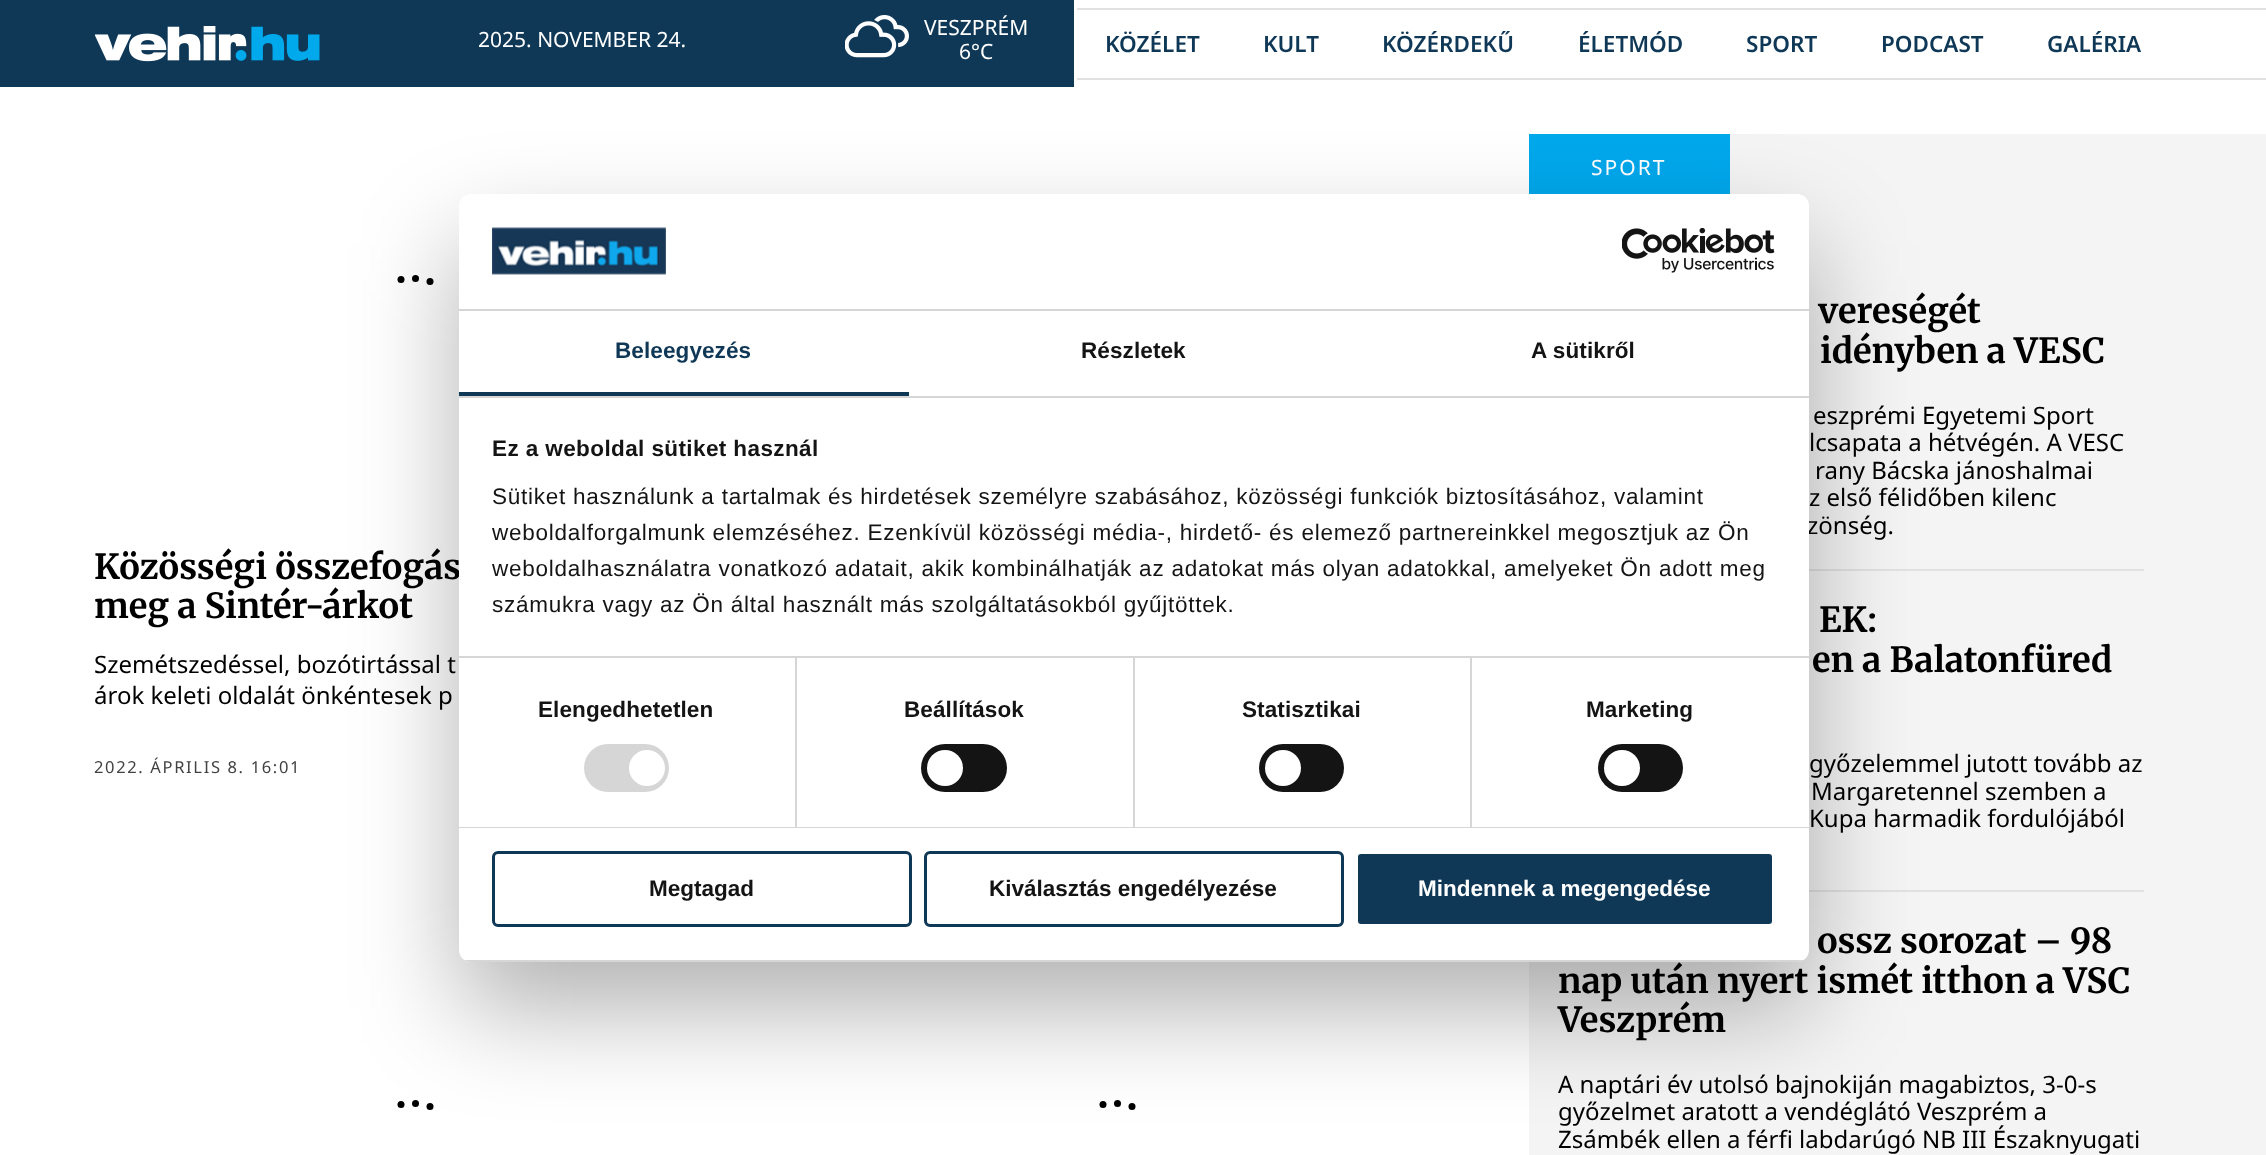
(async () => {
    const canvas = document.querySelector("canvas");
    canvas.width = 2266;
    canvas.height = 1155;
    const context = canvas.getContext("2d");
    context.miterLimit = 4;
    context.fontKerning = "normal";
    function write(s, x, y, font, color) {
        context.font = font;
        context.fillStyle = color;
        context.fillText(s, x, y);
    }
    function block(x, y, w, h, color) {
        context.fillStyle = color;
        context.fillRect(x, y, w, h);
    }
    function card(x, y, w, h, r, color) {
        context.fillStyle = color;
        context.beginPath();
        context.roundRect(x, y, w, h, r);
        context.fill();
    }
    async function photo(src, x, y, w, h) {
        const img = new Image();
        img.src = src;
        await img.decode();
        context.drawImage(img, x, y, w, h);
    }

    block(0, 0, 2266, 1155, "rgb(255, 255, 255)");
    block(0, 0, 1074, 87, "rgb(15, 56, 87)");
    await photo("media/1.png", 95, 26, 225, 36);
    write("2025. NOVEMBER 24.", 478, 47, "21px Noto Sans", "rgb(255, 255, 255)");
    await photo("media/2.png", 845, 15, 64, 43);
    write("VESZPRÉM", 924, 35, "21px Noto Sans", "rgb(255, 255, 255)");
    write("6°C", 959, 59, "21px Noto Sans", "rgb(255, 255, 255)");
    block(1077, 8, 1189, 2, "rgb(225, 225, 225)");
    write("KÖZÉLET", 1105, 52, "600 22.5px Noto Sans", "rgb(15, 56, 87)");
    write("KULT", 1263, 52, "600 22.5px Noto Sans", "rgb(15, 56, 87)");
    write("KÖZÉRDEKŰ", 1382, 52, "600 22.5px Noto Sans", "rgb(15, 56, 87)");
    write("ÉLETMÓD", 1578, 52, "600 22.5px Noto Sans", "rgb(15, 56, 87)");
    write("SPORT", 1746, 52, "600 22.5px Noto Sans", "rgb(15, 56, 87)");
    write("PODCAST", 1881, 52, "600 22.5px Noto Sans", "rgb(15, 56, 87)");
    write("GALÉRIA", 2047, 52, "600 22.5px Noto Sans", "rgb(15, 56, 87)");
    block(1077, 78, 1189, 2, "rgb(225, 225, 225)");
    context.fillStyle = "rgb(0, 0, 0)";
    context.beginPath();
    context.arc(401, 279.5, 3.5, 0, Math.PI * 2);
    context.fill();
    context.beginPath();
    context.arc(415.5, 278.5, 3.5, 0, Math.PI * 2);
    context.fill();
    context.beginPath();
    context.arc(430, 281.5, 3.5, 0, Math.PI * 2);
    context.fill();
    write("Közösségi összefogás", 94, 579, "bold 34.5px Merriweather", "rgb(0, 0, 0)");
    write("meg a Sintér-árkot", 94, 618, "bold 34.5px Merriweather", "rgb(0, 0, 0)");
    write("Szemétszedéssel, bozótirtással t", 94, 673, "24px Noto Sans", "rgb(0, 0, 0)");
    write("árok keleti oldalát önkéntesek p", 94, 704, "24px Noto Sans", "rgb(0, 0, 0)");
    context.letterSpacing = "1.65px";
    write("2022. ÁPRILIS 8. 16:01", 94, 773, "16.5px Noto Sans", "rgb(67, 66, 66)");
    context.fillStyle = "rgb(0, 0, 0)";
    context.beginPath();
    context.arc(401, 1104.5, 3.5, 0, Math.PI * 2);
    context.fill();
    context.beginPath();
    context.arc(415.5, 1103.5, 3.5, 0, Math.PI * 2);
    context.fill();
    context.beginPath();
    context.arc(430, 1106.5, 3.5, 0, Math.PI * 2);
    context.fill();
    context.beginPath();
    context.arc(1103, 1104.5, 3.5, 0, Math.PI * 2);
    context.fill();
    context.beginPath();
    context.arc(1117.5, 1103.5, 3.5, 0, Math.PI * 2);
    context.fill();
    context.beginPath();
    context.arc(1132, 1106.5, 3.5, 0, Math.PI * 2);
    context.fill();
    block(1529, 134, 737, 1021, "rgb(244, 244, 244)");
    block(1529, 134, 201, 60, "rgb(0, 168, 236)");
    context.letterSpacing = "2px";
    write("SPORT", 1591, 175, "21px Noto Sans", "rgb(255, 255, 255)");
    context.letterSpacing = "0px";
    write("vereségét", 1818, 323, "bold 34.5px Merriweather", "rgb(0, 0, 0)");
    write("idényben a VESC", 1820, 363, "bold 34.5px Merriweather", "rgb(0, 0, 0)");
    write("eszprémi Egyetemi Sport", 1813, 424, "24px Noto Sans", "rgb(0, 0, 0)");
    write("lcsapata a hétvégén. A VESC", 1809, 451, "24px Noto Sans", "rgb(0, 0, 0)");
    write("rany Bácska jánoshalmai", 1815, 479, "24px Noto Sans", "rgb(0, 0, 0)");
    write("z első félidőben kilenc", 1809, 506, "24px Noto Sans", "rgb(0, 0, 0)");
    write("zönség.", 1807, 534, "24px Noto Sans", "rgb(0, 0, 0)");
    block(1809, 569, 335, 2, "rgb(225, 225, 225)");
    write("EK:", 1819, 632, "bold 34.5px Merriweather", "rgb(0, 0, 0)");
    write("en a Balatonfüred", 1812, 672, "bold 34.5px Merriweather", "rgb(0, 0, 0)");
    write("győzelemmel jutott tovább az", 1809, 772, "24px Noto Sans", "rgb(0, 0, 0)");
    write("Margaretennel szemben a", 1811, 800, "24px Noto Sans", "rgb(0, 0, 0)");
    write("Kupa harmadik fordulójából", 1809, 827, "24px Noto Sans", "rgb(0, 0, 0)");
    block(1809, 890, 335, 2, "rgb(225, 225, 225)");
    write("ossz sorozat – 98", 1817, 953, "bold 34.5px Merriweather", "rgb(0, 0, 0)");
    write("nap után nyert ismét itthon a VSC", 1558, 993, "bold 34.5px Merriweather", "rgb(0, 0, 0)");
    write("Veszprém", 1558, 1032, "bold 34.5px Merriweather", "rgb(0, 0, 0)");
    write("A naptári év utolsó bajnokiján magabiztos, 3-0-s", 1558, 1093, "24px Noto Sans", "rgb(0, 0, 0)");
    write("győzelmet aratott a vendéglátó Veszprém a", 1558, 1120, "24px Noto Sans", "rgb(0, 0, 0)");
    write("Zsámbék ellen a férfi labdarúgó NB III Északnyugati", 1558, 1148, "24px Noto Sans", "rgb(0, 0, 0)");
    context.fillStyle = "rgba(0, 0, 0, 0.3)";
    context.filter = "blur(51px)";
    context.beginPath();
    context.roundRect(459, 242, 1350, 768, 12);
    context.fill();
    context.filter = "none";
    card(459, 194, 1350, 768, 12, "rgb(255, 255, 255)");
    block(459, 309, 1350, 2, "rgb(214, 214, 214)");
    await photo("media/3.png", 492, 227, 174, 48);
    await photo("media/4.png", 1622, 228, 153, 45);
    block(459, 396, 1350, 2, "rgb(214, 214, 214)");
    block(459, 392, 450, 4, "rgb(15, 56, 87)");
    context.letterSpacing = "0.1px";
    write("Beleegyezés", 615, 358, "bold 22.5px Liberation Sans", "rgb(15, 56, 87)");
    write("Részletek", 1081, 358, "bold 22.5px Liberation Sans", "rgb(20, 20, 20)");
    write("A sütikről", 1531, 358, "bold 22.5px Liberation Sans", "rgb(20, 20, 20)");
    block(795, 657, 2, 170, "rgb(214, 214, 214)");
    block(1133, 657, 2, 170, "rgb(214, 214, 214)");
    block(1470, 657, 2, 170, "rgb(214, 214, 214)");
    block(459, 656, 1350, 2, "rgb(214, 214, 214)");
    context.letterSpacing = "0.4px";
    write("Ez a weboldal sütiket használ", 492, 456, "bold 22.5px Liberation Sans", "rgb(20, 20, 20)");
    context.letterSpacing = "0.75px";
    write("Sütiket használunk a tartalmak és hirdetések személyre szabásához, közösségi funkciók biztosításához, valamint", 492, 504, "22.5px Liberation Sans", "rgb(20, 20, 20)");
    write("weboldalforgalmunk elemzéséhez. Ezenkívül közösségi média-, hirdető- és elemező partnereinkkel megosztjuk az Ön", 492, 540, "22.5px Liberation Sans", "rgb(20, 20, 20)");
    write("weboldalhasználatra vonatkozó adatait, akik kombinálhatják az adatokat más olyan adatokkal, amelyeket Ön adott meg", 492, 576, "22.5px Liberation Sans", "rgb(20, 20, 20)");
    write("számukra vagy az Ön által használt más szolgáltatásokból gyűjtöttek.", 492, 612, "22.5px Liberation Sans", "rgb(20, 20, 20)");
    block(459, 827, 1350, 1, "rgb(214, 214, 214)");
    context.letterSpacing = "0.1px";
    write("Elengedhetetlen", 538, 717, "bold 22.5px Liberation Sans", "rgb(20, 20, 20)");
    card(584, 744, 85, 48, 24, "rgb(214, 214, 214)");
    context.fillStyle = "rgb(255, 255, 255)";
    context.beginPath();
    context.arc(647, 768, 18, 0, Math.PI * 2);
    context.fill();
    write("Beállítások", 904, 717, "bold 22.5px Liberation Sans", "rgb(20, 20, 20)");
    card(921, 744, 86, 48, 24, "rgb(20, 20, 20)");
    context.fillStyle = "rgb(255, 255, 255)";
    context.beginPath();
    context.arc(945, 768, 18, 0, Math.PI * 2);
    context.fill();
    write("Statisztikai", 1242, 717, "bold 22.5px Liberation Sans", "rgb(20, 20, 20)");
    card(1259, 744, 85, 48, 24, "rgb(20, 20, 20)");
    context.fillStyle = "rgb(255, 255, 255)";
    context.beginPath();
    context.arc(1283, 768, 18, 0, Math.PI * 2);
    context.fill();
    write("Marketing", 1586, 717, "bold 22.5px Liberation Sans", "rgb(20, 20, 20)");
    card(1598, 744, 85, 48, 24, "rgb(20, 20, 20)");
    context.fillStyle = "rgb(255, 255, 255)";
    context.beginPath();
    context.arc(1622, 768, 18, 0, Math.PI * 2);
    context.fill();
    context.save();
    context.beginPath();
    context.roundRect(459, 194, 1350, 768, 12);
    context.clip();
    block(459, 960, 1350, 2, "rgb(214, 214, 214)");
    context.restore();
    context.beginPath();
    context.roundRect(493.5, 852.5, 417, 73, 4.5);
    context.strokeStyle = "rgb(15, 56, 87)";
    context.lineWidth = 3;
    context.stroke();
    context.letterSpacing = "0px";
    write("Megtagad", 649, 896, "bold 22.5px Liberation Sans", "rgb(20, 20, 20)");
    context.beginPath();
    context.roundRect(925.5, 852.5, 417, 73, 4.5);
    context.stroke();
    write("Kiválasztás engedélyezése", 989, 896, "bold 22.5px Liberation Sans", "rgb(20, 20, 20)");
    context.fillStyle = "rgb(15, 56, 87)";
    context.beginPath();
    context.roundRect(1356.5, 852.5, 417, 73, 4.5);
    context.fill();
    context.strokeStyle = "rgb(255, 255, 255)";
    context.stroke();
    write("Mindennek a megengedése", 1418, 896, "bold 22.5px Liberation Sans", "rgb(255, 255, 255)");
})();
